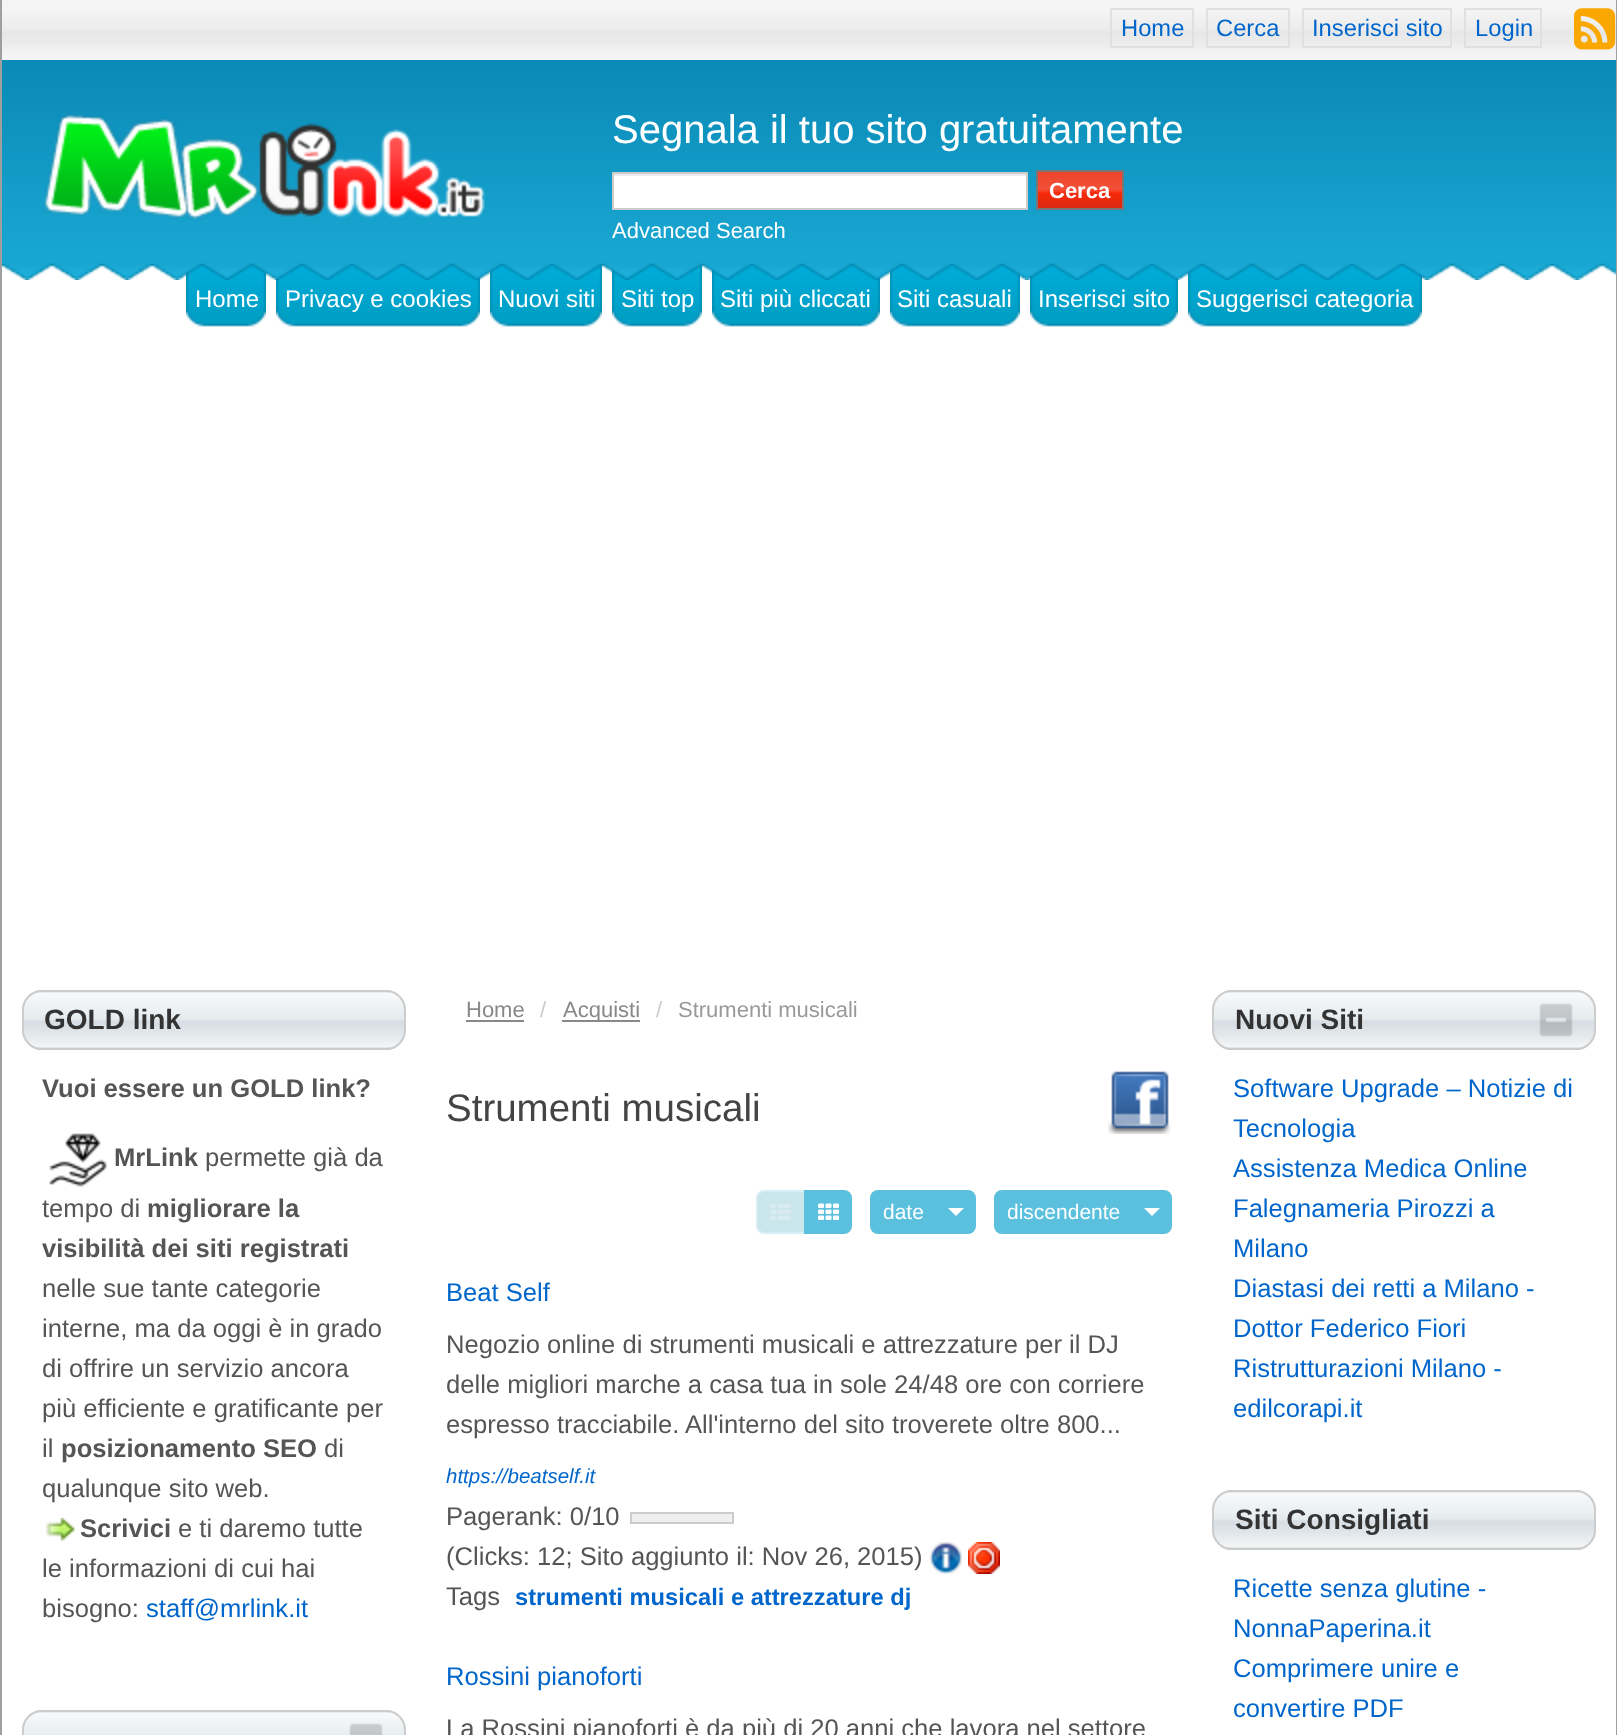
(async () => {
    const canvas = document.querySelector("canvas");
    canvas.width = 1617;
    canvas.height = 1735;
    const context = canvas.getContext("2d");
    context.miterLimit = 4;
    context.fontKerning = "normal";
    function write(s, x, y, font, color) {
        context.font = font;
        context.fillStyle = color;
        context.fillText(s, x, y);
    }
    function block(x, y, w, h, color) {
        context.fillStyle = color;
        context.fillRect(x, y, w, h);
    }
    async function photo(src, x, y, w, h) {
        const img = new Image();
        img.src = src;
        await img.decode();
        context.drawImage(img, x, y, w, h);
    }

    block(0, 0, 1617, 1735, "rgb(255, 255, 255)");
    block(1616, 0, 1, 1735, "rgb(159, 159, 159)");
    block(0, 0, 2, 1735, "rgb(159, 159, 159)");
    await photo("media/1.png", 2, 0, 1614, 60);
    context.strokeStyle = "rgb(224, 224, 224)";
    context.lineWidth = 2;
    context.strokeRect(1111, 9, 82, 38);
    write("Home", 1121, 36, "23.75px Liberation Sans", "rgb(0, 102, 204)");
    context.strokeRect(1207, 9, 82, 38);
    write("Cerca", 1216, 36, "23.75px Liberation Sans", "rgb(0, 102, 204)");
    context.strokeRect(1303, 9, 148, 38);
    write("Inserisci sito", 1312, 36, "23.75px Liberation Sans", "rgb(0, 102, 204)");
    context.strokeRect(1465, 9, 76, 38);
    write("Login", 1475, 36, "23.75px Liberation Sans", "rgb(0, 102, 204)");
    await photo("media/2.png", 1574, 8, 42, 42);
    await photo("media/6.png", 186, 265, 61, 62);
    await photo("media/7.png", 247, 265, 19, 62);
    await photo("media/8.png", 276, 265, 185, 62);
    await photo("media/9.png", 461, 269, 19, 58);
    await photo("media/10.png", 490, 265, 93, 62);
    await photo("media/7.png", 583, 265, 19, 62);
    await photo("media/11.png", 612, 265, 71, 62);
    await photo("media/7.png", 683, 265, 19, 62);
    await photo("media/12.png", 712, 265, 149, 62);
    await photo("media/9.png", 861, 269, 19, 58);
    await photo("media/13.png", 890, 265, 111, 62);
    await photo("media/7.png", 1001, 265, 19, 62);
    await photo("media/14.png", 1030, 265, 129, 62);
    await photo("media/15.png", 1159, 267, 19, 60);
    await photo("media/16.png", 1188, 265, 215, 62);
    await photo("media/7.png", 1403, 265, 19, 62);
    await photo("media/3.png", 2, 60, 1614, 220);
    await photo("media/4.png", 44, 114, 441, 105);
    write("Segnala il tuo sito gratuitamente", 612, 143, "40px Liberation Sans", "rgb(255, 255, 255)");
    block(614, 176, 412, 32, "rgb(255, 255, 255)");
    block(614, 174, 412, 2, "rgb(236, 236, 236)");
    context.strokeStyle = "rgb(204, 204, 204)";
    context.strokeRect(613, 173, 414, 36);
    await photo("media/5.png", 1038, 172, 84, 36);
    context.strokeStyle = "rgb(119, 119, 119)";
    context.strokeRect(1037, 171, 86, 38);
    write("Cerca", 1049, 198, "bold 22px Liberation Sans", "rgb(255, 255, 255)");
    write("Advanced Search", 612, 238, "22px Liberation Sans", "rgb(255, 255, 255)");
    write("Home", 195, 307, "24px Liberation Sans", "rgb(255, 255, 255)");
    write("Privacy e cookies", 285, 307, "24px Liberation Sans", "rgb(255, 255, 255)");
    write("Nuovi siti", 498, 307, "24px Liberation Sans", "rgb(255, 255, 255)");
    write("Siti top", 621, 307, "24px Liberation Sans", "rgb(255, 255, 255)");
    write("Siti più cliccati", 720, 307, "24px Liberation Sans", "rgb(255, 255, 255)");
    write("Siti casuali", 897, 307, "24px Liberation Sans", "rgb(255, 255, 255)");
    write("Inserisci sito", 1038, 307, "24px Liberation Sans", "rgb(255, 255, 255)");
    write("Suggerisci categoria", 1196, 307, "24px Liberation Sans", "rgb(255, 255, 255)");
    await photo("media/17.png", 22, 990, 384, 60);
    context.beginPath();
    context.roundRect(23, 991, 382, 58, 19);
    context.strokeStyle = "rgb(204, 204, 204)";
    context.stroke();
    write("GOLD link", 44, 1029, "bold 28px Liberation Sans", "rgb(51, 51, 51)");
    write("Vuoi essere un GOLD link?", 42, 1097, "bold 25.6px Liberation Sans", "rgb(85, 85, 85)");
    await photo("media/18.png", 49, 1133, 58, 54);
    write("MrLink", 114, 1166, "bold 25.6px Liberation Sans", "rgb(85, 85, 85)");
    write("permette già da", 205, 1166, "25.6px Liberation Sans", "rgb(85, 85, 85)");
    write("tempo di", 42, 1217, "25.6px Liberation Sans", "rgb(85, 85, 85)");
    write("migliorare la", 147, 1217, "bold 25.6px Liberation Sans", "rgb(85, 85, 85)");
    write("visibilità dei siti registrati", 42, 1257, "bold 25.6px Liberation Sans", "rgb(85, 85, 85)");
    write("nelle sue tante categorie", 42, 1297, "25.6px Liberation Sans", "rgb(85, 85, 85)");
    write("interne, ma da oggi è in grado", 42, 1337, "25.6px Liberation Sans", "rgb(85, 85, 85)");
    write("di offrire un servizio ancora", 42, 1377, "25.6px Liberation Sans", "rgb(85, 85, 85)");
    write("più efficiente e gratificante per", 42, 1417, "25.6px Liberation Sans", "rgb(85, 85, 85)");
    write("il", 42, 1457, "25.6px Liberation Sans", "rgb(85, 85, 85)");
    write("posizionamento SEO", 61, 1457, "bold 25.6px Liberation Sans", "rgb(85, 85, 85)");
    write("di", 324, 1457, "25.6px Liberation Sans", "rgb(85, 85, 85)");
    write("qualunque sito web.", 42, 1497, "25.6px Liberation Sans", "rgb(85, 85, 85)");
    await photo("media/19.png", 46, 1518, 30, 24);
    write("Scrivici", 80, 1537, "bold 25.6px Liberation Sans", "rgb(85, 85, 85)");
    write("e ti daremo tutte", 178, 1537, "25.6px Liberation Sans", "rgb(85, 85, 85)");
    write("le informazioni di cui hai", 42, 1577, "25.6px Liberation Sans", "rgb(85, 85, 85)");
    write("bisogno:", 42, 1617, "25.6px Liberation Sans", "rgb(85, 85, 85)");
    write("staff@mrlink.it", 146, 1617, "25.6px Liberation Sans", "rgb(0, 102, 204)");
    await photo("media/20.png", 22, 1710, 384, 25);
    context.beginPath();
    context.roundRect(23, 1711, 382, 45, 19);
    context.stroke();
    await photo("media/21.png", 349, 1723, 34, 12);
    write("Home", 466, 1017, "22px Liberation Sans", "rgb(136, 136, 136)");
    block(466, 1020, 58, 2, "rgb(136, 136, 136)");
    write("/", 540, 1017, "22px Liberation Sans", "rgb(204, 204, 204)");
    block(562, 1020, 78, 2, "rgb(136, 136, 136)");
    write("Acquisti", 563, 1017, "22px Liberation Sans", "rgb(136, 136, 136)");
    write("/", 656, 1017, "22px Liberation Sans", "rgb(204, 204, 204)");
    write("Strumenti musicali", 678, 1017, "22px Liberation Sans", "rgb(153, 153, 153)");
    await photo("media/22.png", 1108, 1071, 63, 63);
    write("Strumenti musicali", 446, 1121, "38.5px Liberation Sans", "rgb(68, 68, 68)");
    context.fillStyle = "rgb(203, 229, 236)";
    context.beginPath();
    context.roundRect(757, 1191, 48, 42, [7, 0, 0, 7]);
    context.fill();
    context.strokeStyle = "rgb(214, 239, 247)";
    context.stroke();
    await photo("media/23.png", 770, 1203, 21, 17);
    context.fillStyle = "rgb(91, 192, 222)";
    context.beginPath();
    context.roundRect(805, 1191, 46, 42, [0, 7, 7, 0]);
    context.fill();
    context.strokeStyle = "rgb(91, 192, 222)";
    context.stroke();
    await photo("media/24.png", 818, 1203, 21, 17);
    context.beginPath();
    context.roundRect(871, 1191, 66, 42, [7, 0, 0, 7]);
    context.fill();
    context.stroke();
    write("date", 883, 1219, "21px Liberation Sans", "rgb(255, 255, 255)");
    context.fillStyle = "rgb(91, 192, 222)";
    context.beginPath();
    context.roundRect(937, 1191, 38, 42, [0, 7, 7, 0]);
    context.fill();
    context.stroke();
    context.fillStyle = "rgb(255, 255, 255)";
    context.beginPath();
    context.moveTo(948, 1208);
    context.lineTo(964, 1208);
    context.lineTo(956, 1216);
    context.closePath();
    context.fill();
    context.fillStyle = "rgb(91, 192, 222)";
    context.beginPath();
    context.roundRect(995, 1191, 138, 42, [7, 0, 0, 7]);
    context.fill();
    context.stroke();
    write("discendente", 1007, 1219, "21px Liberation Sans", "rgb(255, 255, 255)");
    context.fillStyle = "rgb(91, 192, 222)";
    context.beginPath();
    context.roundRect(1133, 1191, 38, 42, [0, 7, 7, 0]);
    context.fill();
    context.stroke();
    context.fillStyle = "rgb(255, 255, 255)";
    context.beginPath();
    context.moveTo(1144, 1208);
    context.lineTo(1160, 1208);
    context.lineTo(1152, 1216);
    context.closePath();
    context.fill();
    write("Beat Self", 446, 1301, "25.6px Liberation Sans", "rgb(0, 102, 204)");
    write("Negozio online di strumenti musicali e attrezzature per il DJ", 446, 1353, "25.6px Liberation Sans", "rgb(85, 85, 85)");
    write("delle migliori marche a casa tua in sole 24/48 ore con corriere", 446, 1393, "25.6px Liberation Sans", "rgb(85, 85, 85)");
    write("espresso tracciabile. All'interno del sito troverete oltre 800...", 446, 1433, "25.6px Liberation Sans", "rgb(85, 85, 85)");
    write("https://beatself.it", 446, 1483, "italic 20.5px Liberation Sans", "rgb(0, 102, 204)");
    write("Pagerank: 0/10", 446, 1525, "25.6px Liberation Sans", "rgb(85, 85, 85)");
    context.fillStyle = "rgb(239, 239, 239)";
    context.beginPath();
    context.rect(631, 1513, 102, 10);
    context.fill();
    context.strokeStyle = "rgb(204, 204, 204)";
    context.stroke();
    write("(Clicks: 12; Sito aggiunto il: Nov 26, 2015)", 446, 1565, "25.6px Liberation Sans", "rgb(85, 85, 85)");
    await photo("media/25.png", 930, 1542, 32, 32);
    await photo("media/26.png", 968, 1542, 32, 32);
    write("Tags", 446, 1605, "25.6px Liberation Sans", "rgb(85, 85, 85)");
    write("strumenti musicali e attrezzature dj", 515, 1605, "bold 23.7px Liberation Sans", "rgb(0, 102, 204)");
    write("Rossini pianoforti", 446, 1685, "25.6px Liberation Sans", "rgb(0, 102, 204)");
    write("La Rossini pianoforti è da più di 20 anni che lavora nel settore", 446, 1737, "25.6px Liberation Sans", "rgb(85, 85, 85)");
    await photo("media/17.png", 1212, 990, 384, 60);
    context.beginPath();
    context.roundRect(1213, 991, 382, 58, 19);
    context.stroke();
    write("Nuovi Siti", 1235, 1029, "bold 28px Liberation Sans", "rgb(51, 51, 51)");
    await photo("media/27.png", 1539, 1003, 34, 34);
    write("Software Upgrade – Notizie di", 1233, 1097, "25.6px Liberation Sans", "rgb(0, 102, 204)");
    write("Tecnologia", 1233, 1137, "25.6px Liberation Sans", "rgb(0, 102, 204)");
    write("Assistenza Medica Online", 1233, 1177, "25.6px Liberation Sans", "rgb(0, 102, 204)");
    write("Falegnameria Pirozzi a", 1233, 1217, "25.6px Liberation Sans", "rgb(0, 102, 204)");
    write("Milano", 1233, 1257, "25.6px Liberation Sans", "rgb(0, 102, 204)");
    write("Diastasi dei retti a Milano -", 1233, 1297, "25.6px Liberation Sans", "rgb(0, 102, 204)");
    write("Dottor Federico Fiori", 1233, 1337, "25.6px Liberation Sans", "rgb(0, 102, 204)");
    write("Ristrutturazioni Milano -", 1233, 1377, "25.6px Liberation Sans", "rgb(0, 102, 204)");
    write("edilcorapi.it", 1233, 1417, "25.6px Liberation Sans", "rgb(0, 102, 204)");
    await photo("media/17.png", 1212, 1490, 384, 60);
    context.beginPath();
    context.roundRect(1213, 1491, 382, 58, 19);
    context.stroke();
    write("Siti Consigliati", 1235, 1529, "bold 28px Liberation Sans", "rgb(51, 51, 51)");
    write("Ricette senza glutine -", 1233, 1597, "25.6px Liberation Sans", "rgb(0, 102, 204)");
    write("NonnaPaperina.it", 1233, 1637, "25.6px Liberation Sans", "rgb(0, 102, 204)");
    write("Comprimere unire e", 1233, 1677, "25.6px Liberation Sans", "rgb(0, 102, 204)");
    write("convertire PDF", 1233, 1717, "25.6px Liberation Sans", "rgb(0, 102, 204)");
})();
